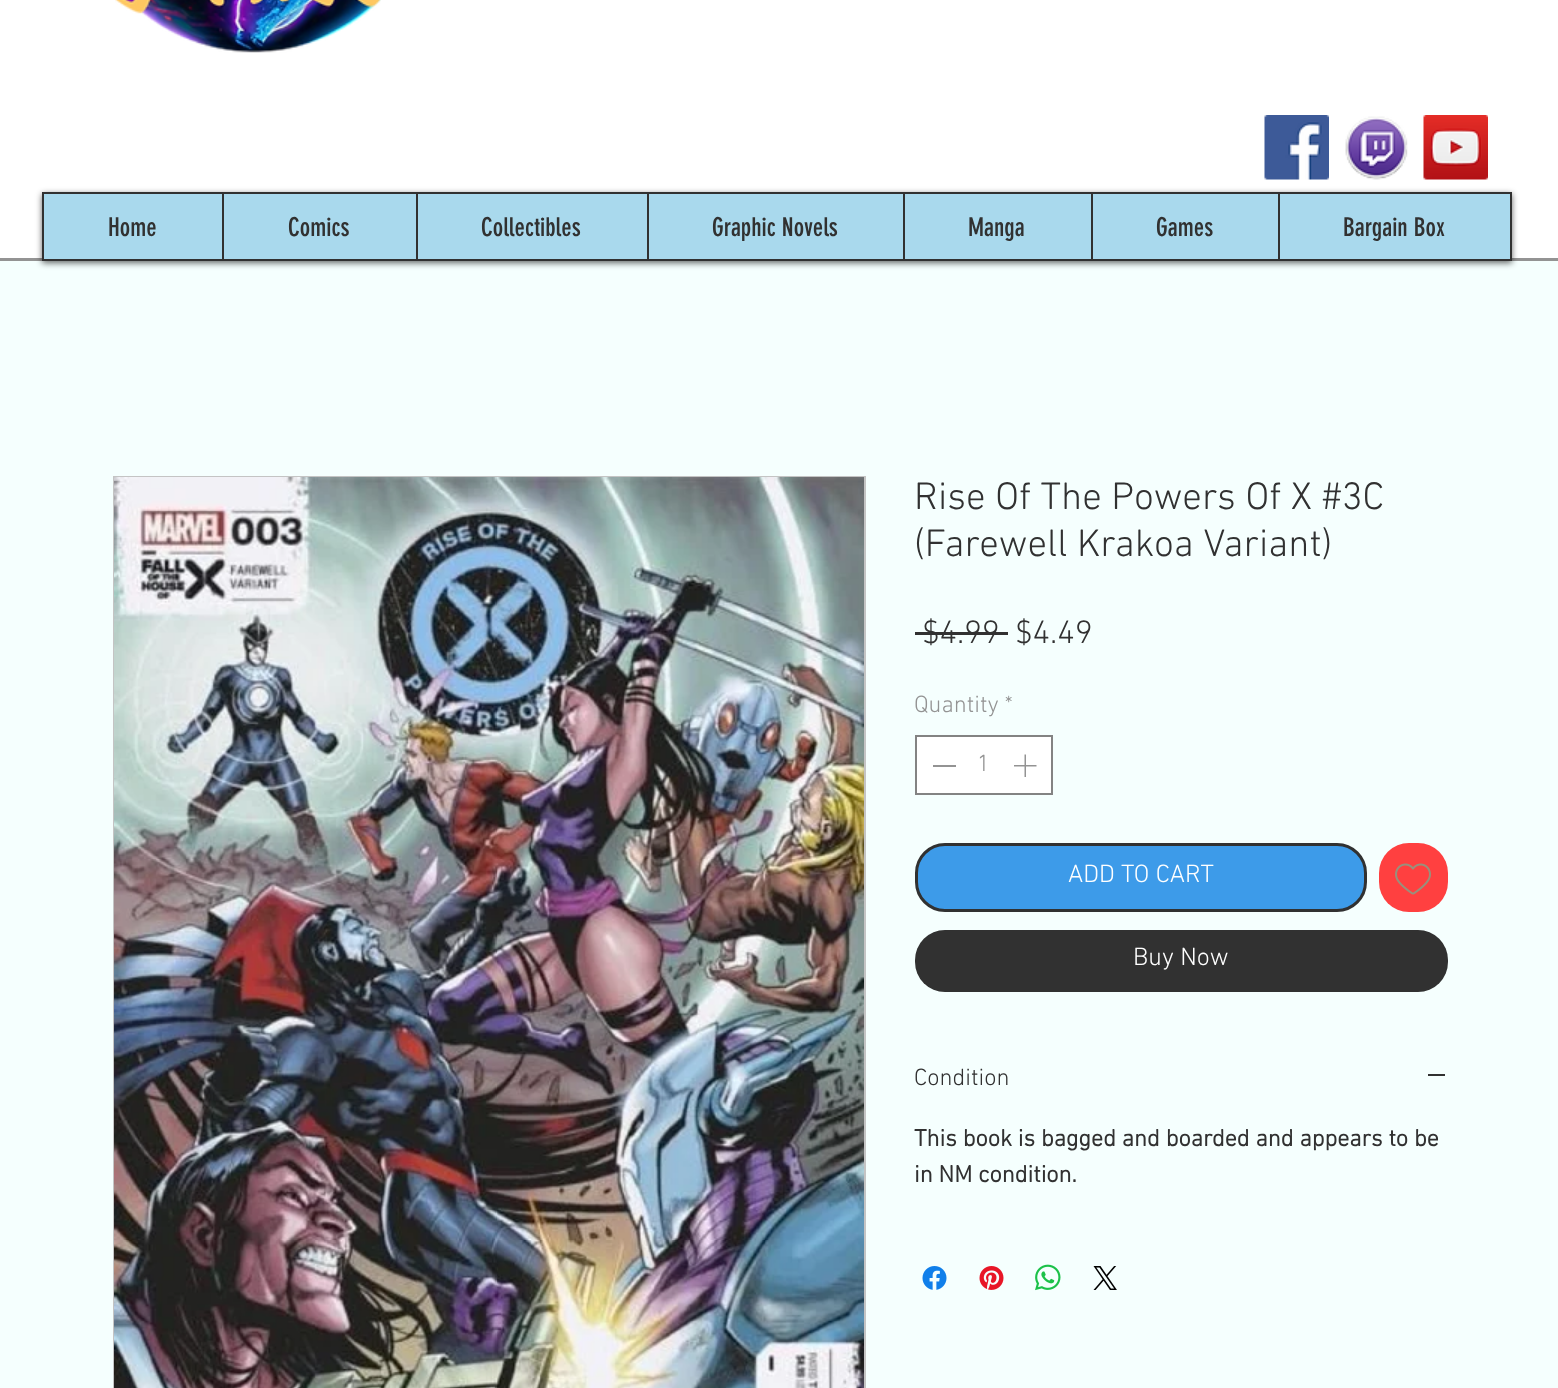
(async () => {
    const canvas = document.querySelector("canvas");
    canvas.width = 1558;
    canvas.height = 1388;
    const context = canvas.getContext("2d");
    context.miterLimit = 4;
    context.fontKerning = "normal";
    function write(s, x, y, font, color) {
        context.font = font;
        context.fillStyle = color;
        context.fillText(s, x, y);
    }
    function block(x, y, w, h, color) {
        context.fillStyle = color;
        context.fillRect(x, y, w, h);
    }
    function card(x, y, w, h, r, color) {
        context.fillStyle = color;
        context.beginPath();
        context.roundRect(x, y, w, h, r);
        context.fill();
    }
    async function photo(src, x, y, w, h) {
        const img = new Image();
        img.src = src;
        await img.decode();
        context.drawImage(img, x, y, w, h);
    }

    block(0, 0, 1558, 1388, "rgb(245, 255, 254)");
    block(0, 258, 1558, 3, "rgb(147, 147, 147)");
    block(0, 0, 1558, 258, "rgb(255, 255, 255)");
    await photo("media/1.png", 115, 0, 266, 53);
    await photo("media/2.png", 1264, 115, 65, 65);
    await photo("media/3.png", 1345, 116, 63, 64);
    await photo("media/4.png", 1423, 115, 65, 65);
    context.fillStyle = "rgba(0, 0, 0, 0.6)";
    context.filter = "blur(3px)";
    context.beginPath();
    context.rect(42, 194, 1470, 69);
    context.fill();
    context.filter = "none";
    context.fillStyle = "rgb(169, 217, 237)";
    context.beginPath();
    context.rect(43, 193, 1468, 67);
    context.fill();
    context.strokeStyle = "rgb(49, 49, 49)";
    context.lineWidth = 2;
    context.stroke();
    write("Home", 108, 236, "25.5px 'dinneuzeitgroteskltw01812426'", "rgb(49, 49, 49)");
    block(222, 194, 2, 66, "rgb(49, 49, 49)");
    write("Comics", 288, 236, "25.5px 'dinneuzeitgroteskltw01812426'", "rgb(49, 49, 49)");
    block(416, 194, 2, 66, "rgb(49, 49, 49)");
    write("Collectibles", 481, 236, "25.5px 'dinneuzeitgroteskltw01812426'", "rgb(49, 49, 49)");
    block(647, 194, 2, 66, "rgb(49, 49, 49)");
    write("Graphic Novels", 712, 236, "25.5px 'dinneuzeitgroteskltw01812426'", "rgb(49, 49, 49)");
    block(903, 194, 2, 66, "rgb(49, 49, 49)");
    write("Manga", 968, 236, "25.5px 'dinneuzeitgroteskltw01812426'", "rgb(49, 49, 49)");
    block(1091, 194, 2, 66, "rgb(49, 49, 49)");
    write("Games", 1156, 236, "25.5px 'dinneuzeitgroteskltw01812426'", "rgb(49, 49, 49)");
    block(1278, 194, 2, 66, "rgb(49, 49, 49)");
    write("Bargain Box", 1343, 236, "25.5px 'dinneuzeitgroteskltw01812426'", "rgb(49, 49, 49)");
    context.strokeStyle = "rgb(196, 196, 196)";
    context.strokeRect(114, 477, 751, 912);
    await photo("media/5.png", 114, 477, 750, 911);
    write("Rise Of The Powers Of X #3C", 914, 509, "300 39px 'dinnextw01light'", "rgb(49, 49, 49)");
    write("(Farewell Krakoa Variant)", 914, 556, "300 39px 'dinnextw01light'", "rgb(49, 49, 49)");
    write("$4.99", 922, 643, "300 33px 'dinnextw01light'", "rgb(49, 49, 49)");
    block(915, 632, 93, 3, "rgb(49, 49, 49)");
    write("$4.49", 1015, 643, "300 33px 'dinnextw01light'", "rgb(49, 49, 49)");
    write("Quantity *", 914, 712, "300 24px 'dinnextw01light'", "rgb(147, 147, 147)");
    context.fillStyle = "rgb(255, 255, 255)";
    context.beginPath();
    context.rect(916, 736, 136, 58);
    context.fill();
    context.strokeStyle = "rgb(131, 131, 131)";
    context.stroke();
    block(933, 765, 23, 2, "rgb(147, 147, 147)");
    write("1", 977, 771, "300 24px 'dinnextw01light'", "rgb(147, 147, 147)");
    await photo("media/6.png", 1014, 754, 23, 23);
    context.fillStyle = "rgb(61, 155, 233)";
    context.beginPath();
    context.roundRect(916.5, 844.5, 449, 66, 28.5);
    context.fill();
    context.strokeStyle = "rgb(49, 49, 49)";
    context.lineWidth = 3;
    context.stroke();
    write("ADD TO CART", 1068, 882, "300 25.5px 'dinnextw01light'", "rgb(255, 255, 255)");
    card(1379, 843, 69, 69, 30, "rgb(255, 64, 64)");
    await photo("media/7.png", 1395, 863, 36, 32);
    card(915, 930, 533, 62, 30, "rgb(49, 49, 49)");
    write("Buy Now", 1133, 965, "300 25.5px 'dinnextw01light'", "rgb(255, 255, 255)");
    write("Condition", 914, 1085, "300 24px 'dinnextw01light'", "rgb(49, 49, 49)");
    block(1428, 1074, 17, 2, "rgb(49, 49, 49)");
    write("This book is bagged and boarded and appears to be", 914, 1146, "bold 24px 'dinnextw01light'", "rgb(49, 49, 49)");
    write("in NM condition.", 914, 1182, "bold 24px 'dinnextw01light'", "rgb(49, 49, 49)");
    await photo("media/8.png", 922, 1266, 25, 24);
    await photo("media/9.png", 979, 1266, 25, 24);
    await photo("media/10.png", 1035, 1264, 26, 27);
    await photo("media/11.png", 1093, 1266, 24, 24);
})();
